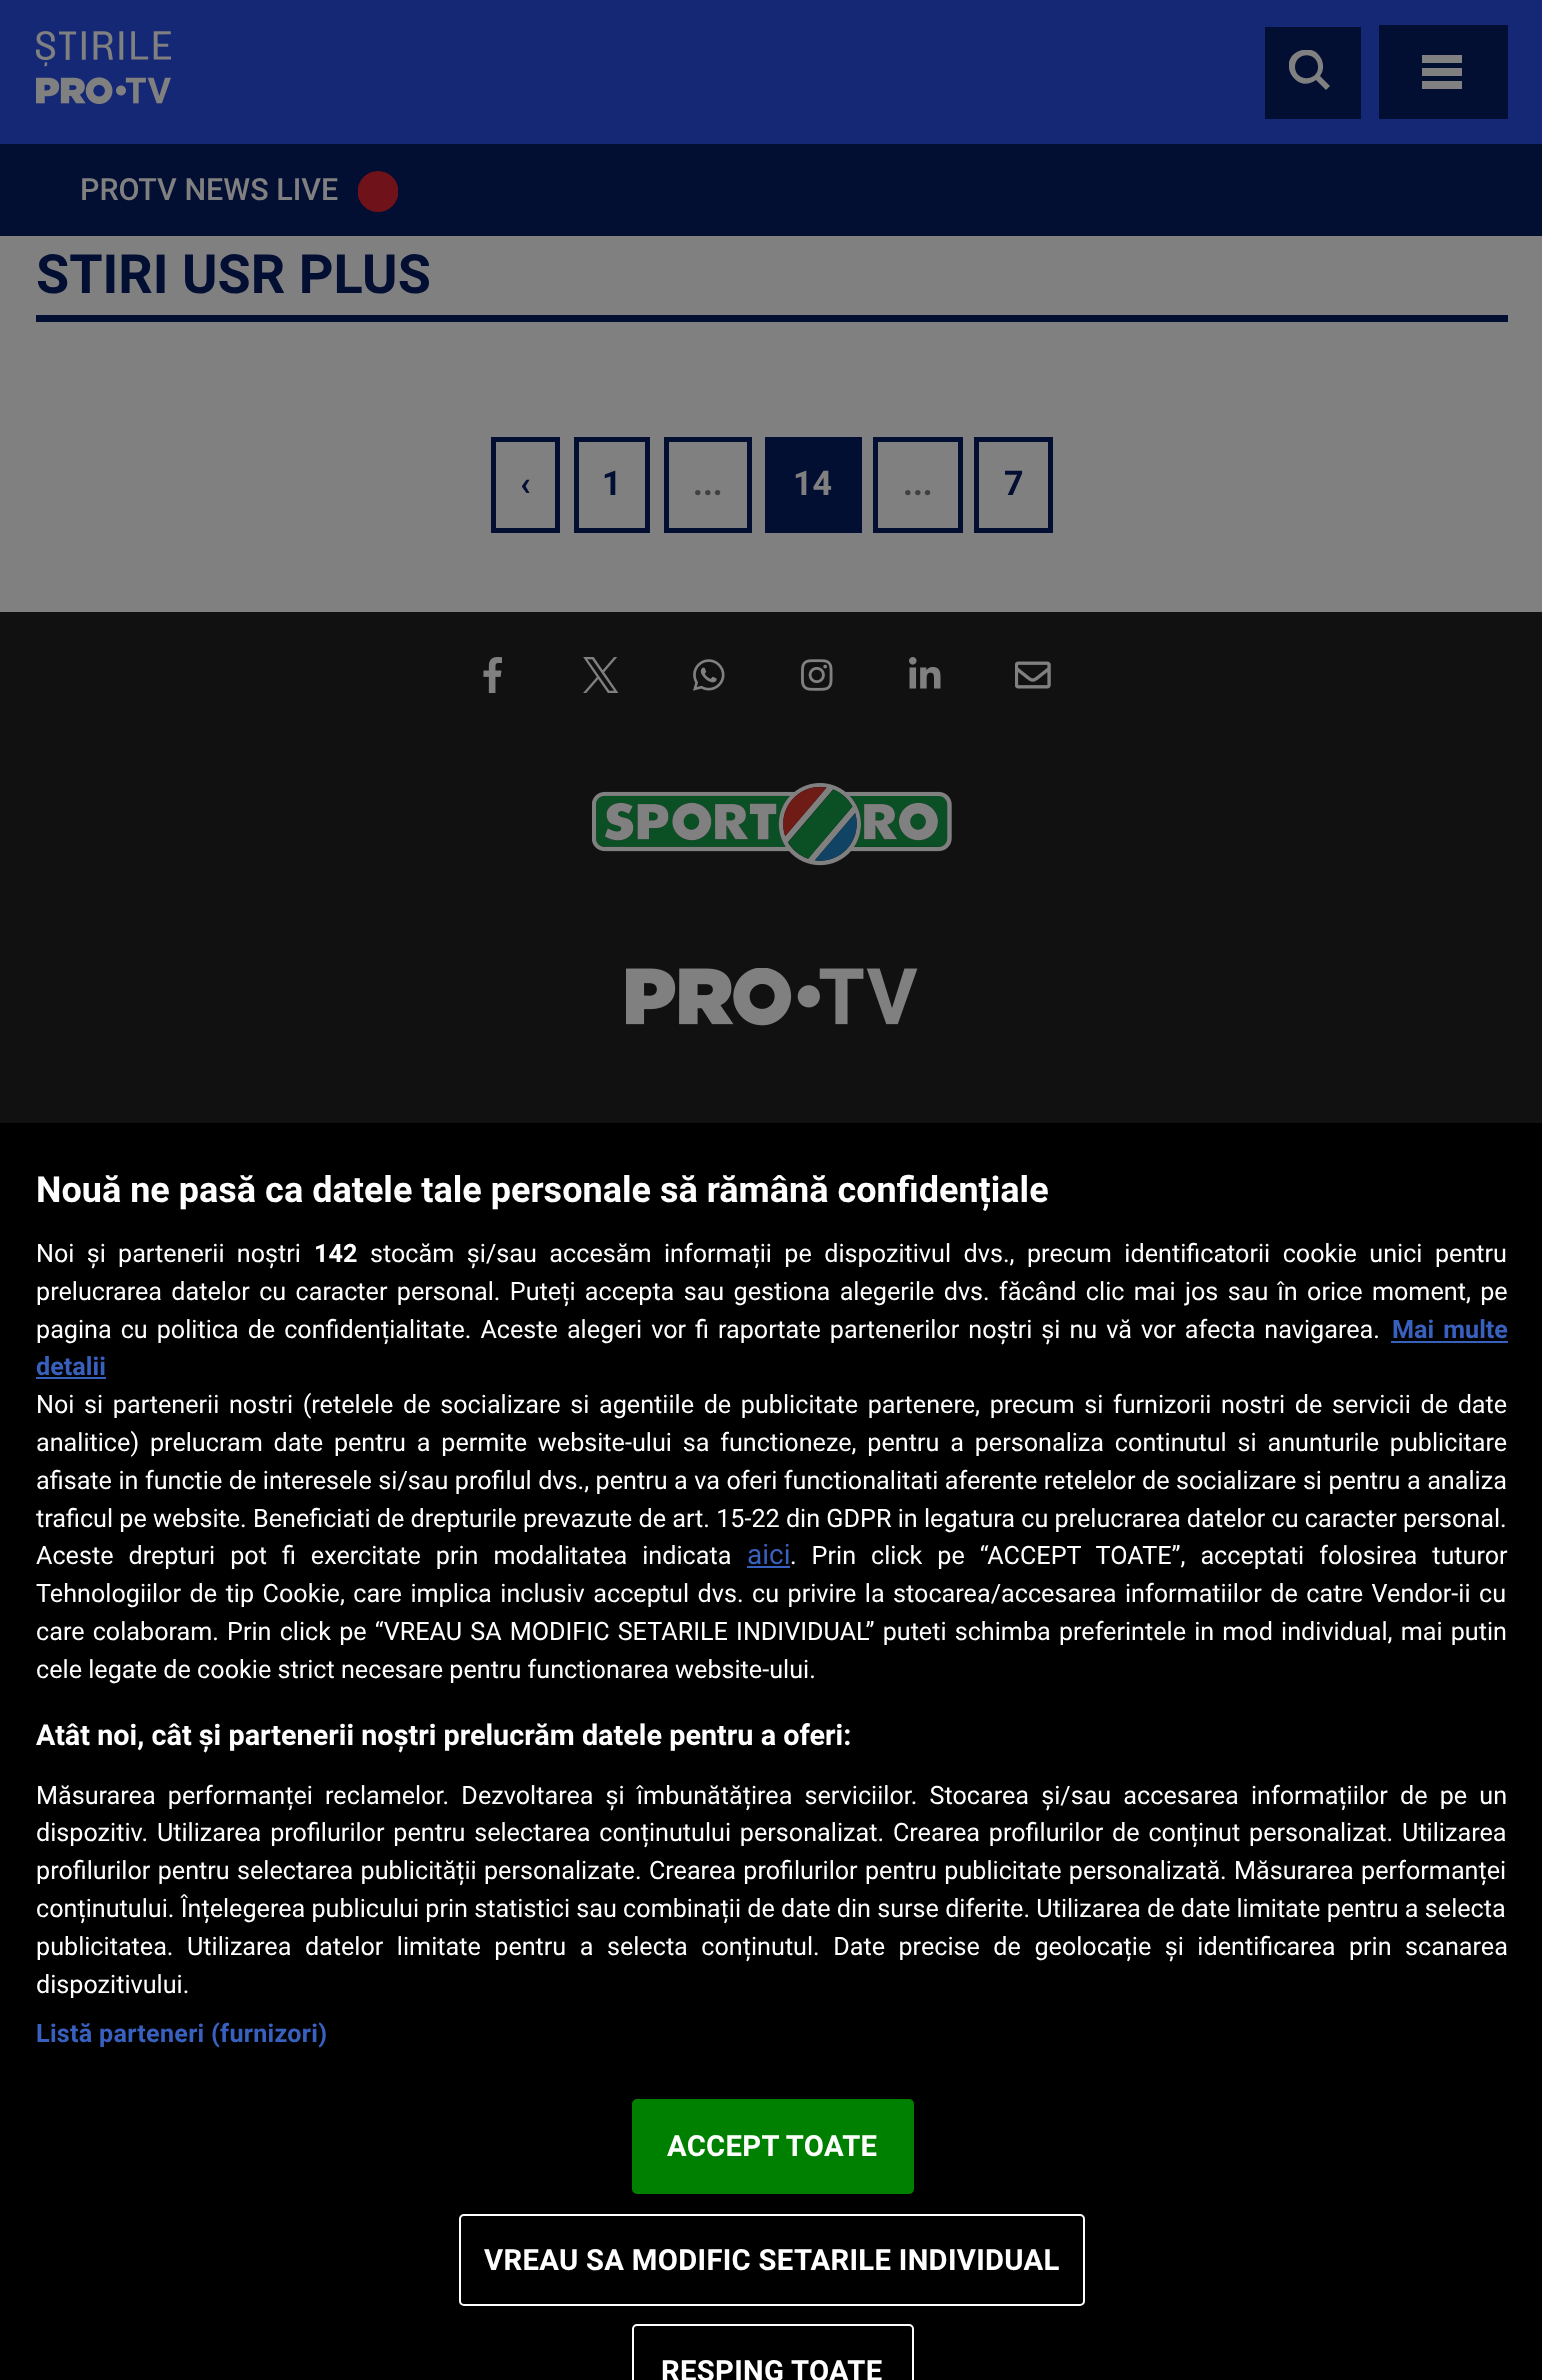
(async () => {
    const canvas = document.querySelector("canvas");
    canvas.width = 1542;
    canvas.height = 2380;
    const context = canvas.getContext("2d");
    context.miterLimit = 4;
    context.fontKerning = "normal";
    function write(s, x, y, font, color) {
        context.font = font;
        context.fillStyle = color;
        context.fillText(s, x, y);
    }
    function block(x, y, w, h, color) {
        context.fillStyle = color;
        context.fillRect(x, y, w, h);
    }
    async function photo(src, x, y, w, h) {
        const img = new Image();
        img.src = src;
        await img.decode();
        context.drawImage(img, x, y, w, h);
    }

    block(0, 0, 1542, 2380, "rgb(128, 128, 128)");
    block(0, 0, 1542, 144, "rgb(21, 40, 117)");
    await photo("media/1.png", 36, 31, 135, 74);
    block(1265, 27, 96, 92, "rgb(3, 14, 51)");
    context.save();
    context.beginPath();
    context.rect(1289, 50, 43, 40);
    context.clip();
    context.fillStyle = "rgb(128, 128, 128)";
    context.beginPath();
    context.moveTo(1330, 86);
    context.lineTo(1320, 76);
    context.bezierCurveTo(1326, 68, 1323, 56, 1314, 51);
    context.bezierCurveTo(1310, 49, 1304, 49, 1299, 51);
    context.bezierCurveTo(1276, 61, 1296, 95, 1316, 80);
    context.lineTo(1326, 90);
    context.closePath();
    context.moveTo(1295, 67);
    context.bezierCurveTo(1295, 52, 1317, 51, 1318, 66);
    context.bezierCurveTo(1319, 82, 1295, 82, 1295, 67);
    context.closePath();
    context.fill();
    context.restore();
    block(1379, 25, 129, 94, "rgb(3, 14, 51)");
    context.fillStyle = "rgb(128, 128, 128)";
    context.beginPath();
    context.moveTo(1462, 63);
    context.lineTo(1422, 63);
    context.lineTo(1422, 55);
    context.lineTo(1462, 55);
    context.closePath();
    context.moveTo(1462, 76);
    context.lineTo(1422, 76);
    context.lineTo(1422, 68);
    context.lineTo(1462, 68);
    context.closePath();
    context.moveTo(1462, 89);
    context.lineTo(1422, 89);
    context.lineTo(1422, 81);
    context.lineTo(1462, 81);
    context.closePath();
    context.fill();
    block(0, 144, 1542, 92, "rgb(3, 14, 51)");
    write("PROTV NEWS LIVE", 80, 200, "500 30.5px Roboto", "rgb(128, 128, 128)");
    context.save();
    context.beginPath();
    context.rect(358, 171, 40, 41);
    context.clip();
    context.fillStyle = "rgb(112, 18, 25)";
    context.beginPath();
    context.arc(378, 191.5, 20.5, 0, Math.PI * 2);
    context.fill();
    context.restore();
    block(36, 315, 1472, 7, "rgb(3, 14, 51)");
    write("STIRI USR PLUS", 36, 293, "bold 54px Roboto", "rgb(3, 14, 51)");
    context.strokeStyle = "rgb(3, 14, 51)";
    context.lineWidth = 5;
    context.strokeRect(493.5, 439.5, 64, 91);
    write("‹", 520, 495, "bold 34px Roboto", "rgb(3, 14, 51)");
    context.strokeRect(576.5, 439.5, 71, 91);
    write("1", 602, 495, "bold 34px Roboto", "rgb(3, 14, 51)");
    context.strokeRect(666.5, 439.5, 83, 91);
    write("...", 693, 495, "bold 34px Roboto", "rgb(64, 64, 64)");
    block(765, 437, 97, 96, "rgb(3, 14, 51)");
    write("14", 793, 495, "bold 34px Roboto", "rgb(128, 128, 128)");
    context.strokeRect(875.5, 439.5, 85, 91);
    write("...", 903, 495, "bold 34px Roboto", "rgb(64, 64, 64)");
    context.strokeRect(976.5, 439.5, 74, 91);
    write("7", 1004, 495, "bold 34px Roboto", "rgb(3, 14, 51)");
    block(0, 612, 1542, 511, "rgb(17, 17, 17)");
    await photo("media/2.png", 483, 657, 20, 36);
    await photo("media/3.png", 583, 657, 36, 36);
    await photo("media/4.png", 693, 659, 32, 32);
    await photo("media/5.png", 801, 659, 32, 32);
    await photo("media/6.png", 909, 657, 32, 32);
    await photo("media/7.png", 1015, 661, 36, 28);
    await photo("media/8.png", 592, 783, 360, 83);
    await photo("media/9.png", 626, 968, 292, 58);
    block(0, 1123, 1542, 1257, "rgb(0, 0, 0)");
    write("Nouă ne pasă ca datele tale personale să rămână confidențiale", 36, 1202, "bold 36px Roboto", "rgb(255, 255, 255)");
    context.wordSpacing = "6px";
    write("Noi și partenerii noștri", 36, 1262, "25.2px Roboto", "rgb(255, 255, 255)");
    context.wordSpacing = "0px";
    write("142", 314, 1262, "bold 25.2px Roboto", "rgb(255, 255, 255)");
    context.wordSpacing = "6.25px";
    write("stocăm și/sau accesăm informații pe dispozitivul dvs., precum identificatorii cookie unici pentru", 370, 1262, "25.2px Roboto", "rgb(255, 255, 255)");
    context.wordSpacing = "3.1px";
    write("prelucrarea datelor cu caracter personal. Puteți accepta sau gestiona alegerile dvs. făcând clic mai jos sau în orice moment, pe", 36, 1300, "25.2px Roboto", "rgb(255, 255, 255)");
    context.wordSpacing = "2.75px";
    write("pagina cu politica de confidențialitate. Aceste alegeri vor fi raportate partenerilor noștri și nu vă vor afecta navigarea.", 36, 1338, "25.2px Roboto", "rgb(255, 255, 255)");
    write("Mai multe", 1392, 1338, "bold 25.2px Roboto", "rgb(56, 96, 190)");
    block(1391, 1341, 117, 2, "rgb(56, 96, 190)");
    context.wordSpacing = "0px";
    write("detalii", 36, 1375, "bold 25.2px Roboto", "rgb(56, 96, 190)");
    block(36, 1377, 70, 2, "rgb(56, 96, 190)");
    context.wordSpacing = "3.4px";
    write("Noi si partenerii nostri (retelele de socializare si agentiile de publicitate partenere, precum si furnizorii nostri de servicii de date", 36, 1413, "25.2px Roboto", "rgb(255, 255, 255)");
    context.wordSpacing = "4.6px";
    write("analitice) prelucram date pentru a permite website-ului sa functioneze, pentru a personaliza continutul si anunturile publicitare", 36, 1451, "25.2px Roboto", "rgb(255, 255, 255)");
    context.wordSpacing = "0.25px";
    write("afisate in functie de interesele si/sau profilul dvs., pentru a va oferi functionalitati aferente retelelor de socializare si pentru a analiza", 36, 1489, "25.2px Roboto", "rgb(255, 255, 255)");
    context.wordSpacing = "0px";
    write("traficul pe website. Beneficiati de drepturile prevazute de art. 15-22 din GDPR in legatura cu prelucrarea datelor cu caracter personal.", 36, 1527, "25.2px Roboto", "rgb(255, 255, 255)");
    context.wordSpacing = "8.75px";
    write("Aceste drepturi pot fi exercitate prin modalitatea indicata", 36, 1564, "25.2px Roboto", "rgb(255, 255, 255)");
    context.wordSpacing = "0px";
    write("aici", 747, 1564, "28px Roboto", "rgb(56, 96, 190)");
    block(747, 1566, 43, 2, "rgb(56, 96, 190)");
    context.wordSpacing = "8.75px";
    write(". Prin click pe “ACCEPT TOATE”, acceptati folosirea tuturor", 790, 1564, "25.2px Roboto", "rgb(255, 255, 255)");
    context.wordSpacing = "2.25px";
    write("Tehnologiilor de tip Cookie, care implica inclusiv acceptul dvs. cu privire la stocarea/accesarea informatiilor de catre Vendor-ii cu", 36, 1602, "25.2px Roboto", "rgb(255, 255, 255)");
    context.wordSpacing = "1.9px";
    write("care colaboram. Prin click pe “VREAU SA MODIFIC SETARILE INDIVIDUAL” puteti schimba preferintele in mod individual, mai putin", 36, 1640, "25.2px Roboto", "rgb(255, 255, 255)");
    context.wordSpacing = "0px";
    write("cele legate de cookie strict necesare pentru functionarea website-ului.", 36, 1678, "25.2px Roboto", "rgb(255, 255, 255)");
    write("Atât noi, cât și partenerii noștri prelucrăm datele pentru a oferi:", 36, 1745, "bold 28.8px Roboto", "rgb(255, 255, 255)");
    context.wordSpacing = "5.9px";
    write("Măsurarea performanței reclamelor. Dezvoltarea și îmbunătățirea serviciilor. Stocarea și/sau accesarea informațiilor de pe un", 36, 1804, "25.2px Roboto", "rgb(255, 255, 255)");
    context.wordSpacing = "2.6px";
    write("dispozitiv. Utilizarea profilurilor pentru selectarea conținutului personalizat. Crearea profilurilor de conținut personalizat. Utilizarea", 36, 1841, "25.2px Roboto", "rgb(255, 255, 255)");
    context.wordSpacing = "1.1px";
    write("profilurilor pentru selectarea publicității personalizate. Crearea profilurilor pentru publicitate personalizată. Măsurarea performanței", 36, 1879, "25.2px Roboto", "rgb(255, 255, 255)");
    context.wordSpacing = "0px";
    write("conținutului. Înțelegerea publicului prin statistici sau combinații de date din surse diferite. Utilizarea de date limitate pentru a selecta", 36, 1917, "25.2px Roboto", "rgb(255, 255, 255)");
    context.wordSpacing = "7.25px";
    write("publicitatea. Utilizarea datelor limitate pentru a selecta conținutul. Date precise de geolocație și identificarea prin scanarea", 36, 1955, "25.2px Roboto", "rgb(255, 255, 255)");
    context.wordSpacing = "0px";
    write("dispozitivului.", 36, 1993, "25.2px Roboto", "rgb(255, 255, 255)");
    context.letterSpacing = "0.25px";
    write("Listă parteneri (furnizori)", 36, 2042, "bold 25.2px Roboto", "rgb(56, 96, 190)");
    context.fillStyle = "rgb(0, 128, 0)";
    context.beginPath();
    context.roundRect(633, 2100, 280, 93, 4);
    context.fill();
    context.strokeStyle = "rgb(0, 128, 0)";
    context.lineWidth = 2;
    context.stroke();
    context.letterSpacing = "0.3px";
    write("ACCEPT TOATE", 667, 2156, "bold 29.25px Roboto", "rgb(255, 255, 255)");
    context.beginPath();
    context.roundRect(460, 2215, 624, 90, 4);
    context.strokeStyle = "rgb(255, 255, 255)";
    context.stroke();
    write("VREAU SA MODIFIC SETARILE INDIVIDUAL", 484, 2270, "bold 29.25px Roboto", "rgb(255, 255, 255)");
    context.beginPath();
    context.roundRect(633, 2325, 280, 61, 4);
    context.stroke();
    write("RESPING TOATE", 661, 2381, "bold 29.25px Roboto", "rgb(255, 255, 255)");
})();
